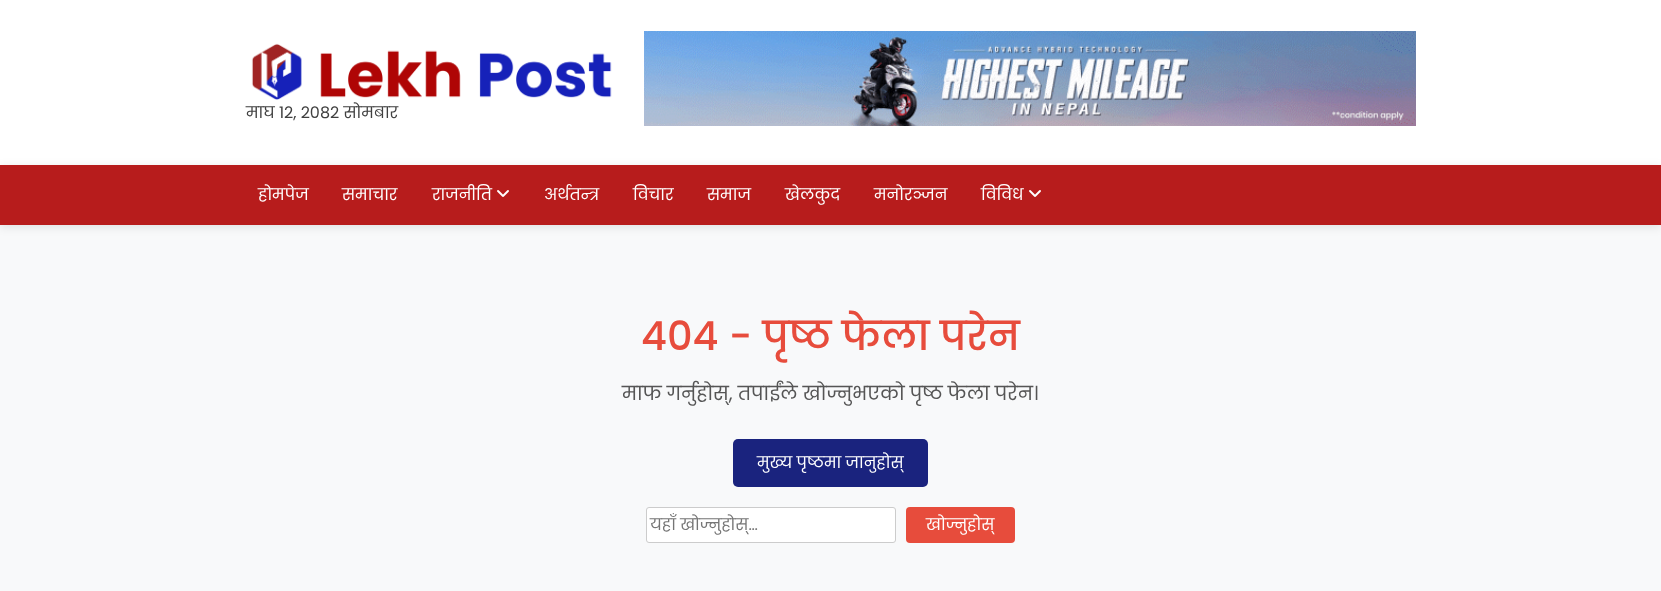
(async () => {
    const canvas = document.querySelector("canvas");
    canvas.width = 1661;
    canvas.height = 591;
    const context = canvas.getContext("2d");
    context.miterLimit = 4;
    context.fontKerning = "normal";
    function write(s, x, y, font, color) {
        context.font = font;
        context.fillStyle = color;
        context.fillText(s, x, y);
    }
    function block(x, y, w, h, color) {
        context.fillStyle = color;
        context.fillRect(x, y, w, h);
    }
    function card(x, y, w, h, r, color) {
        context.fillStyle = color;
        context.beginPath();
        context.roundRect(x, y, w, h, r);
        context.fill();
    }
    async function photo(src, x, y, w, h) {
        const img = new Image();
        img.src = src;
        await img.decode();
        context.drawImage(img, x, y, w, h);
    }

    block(0, 0, 1661, 591, "rgb(255, 255, 255)");
    await photo("media/1.png", 251, 43, 361, 57);
    write("माघ १२, २०८२ सोमबार", 246, 118, "16px Poppins", "rgb(64, 64, 64)");
    await photo("media/2.png", 644, 31, 772, 95);
    block(0, 225, 1661, 366, "rgb(248, 249, 250)");
    context.fillStyle = "rgba(0, 0, 0, 0.1)";
    context.filter = "blur(5px)";
    context.beginPath();
    context.rect(0, 167, 1661, 60);
    context.fill();
    context.filter = "none";
    block(0, 165, 1661, 60, "rgb(183, 28, 28)");
    write("होमपेज", 258, 200, "16px Poppins", "rgb(255, 255, 255)");
    write("समाचार", 342, 200, "16px Poppins", "rgb(255, 255, 255)");
    write("राजनीति", 432, 200, "16px Poppins", "rgb(255, 255, 255)");
    await photo("media/3.png", 497, 190, 12, 7);
    write("अर्थतन्त्र", 544, 200, "16px Poppins", "rgb(255, 255, 255)");
    write("विचार", 633, 200, "16px Poppins", "rgb(255, 255, 255)");
    write("समाज", 707, 200, "16px Poppins", "rgb(255, 255, 255)");
    write("खेलकुद", 785, 200, "16px Poppins", "rgb(255, 255, 255)");
    write("मनोरञ्जन", 874, 200, "16px Poppins", "rgb(255, 255, 255)");
    write("विविध", 981, 200, "16px Poppins", "rgb(255, 255, 255)");
    await photo("media/3.png", 1029, 190, 12, 7);
    write("४०४ - पृष्ठ फेला परेन", 641, 350, "500 40px Poppins", "rgb(231, 76, 60)");
    write("माफ गर्नुहोस्, तपाईंले खोज्नुभएको पृष्ठ फेला परेन।", 622, 400, "19.2px Poppins", "rgb(85, 85, 85)");
    card(733, 439, 195, 48, 5, "rgb(26, 35, 126)");
    write("मुख्य पृष्ठमा जानुहोस्", 757, 468, "16px Poppins", "rgb(255, 255, 255)");
    context.beginPath();
    context.roundRect(646.5, 507.5, 249, 35, 2.5);
    context.fill();
    context.strokeStyle = "rgb(204, 204, 204)";
    context.stroke();
    write("यहाँ खोज्नुहोस्…", 650, 530, "16px Poppins", "rgb(117, 117, 117)");
    card(906, 507, 109, 36, 4, "rgb(231, 76, 60)");
    write("खोज्नुहोस्", 926, 530, "16px Poppins", "rgb(255, 255, 255)");
})();
